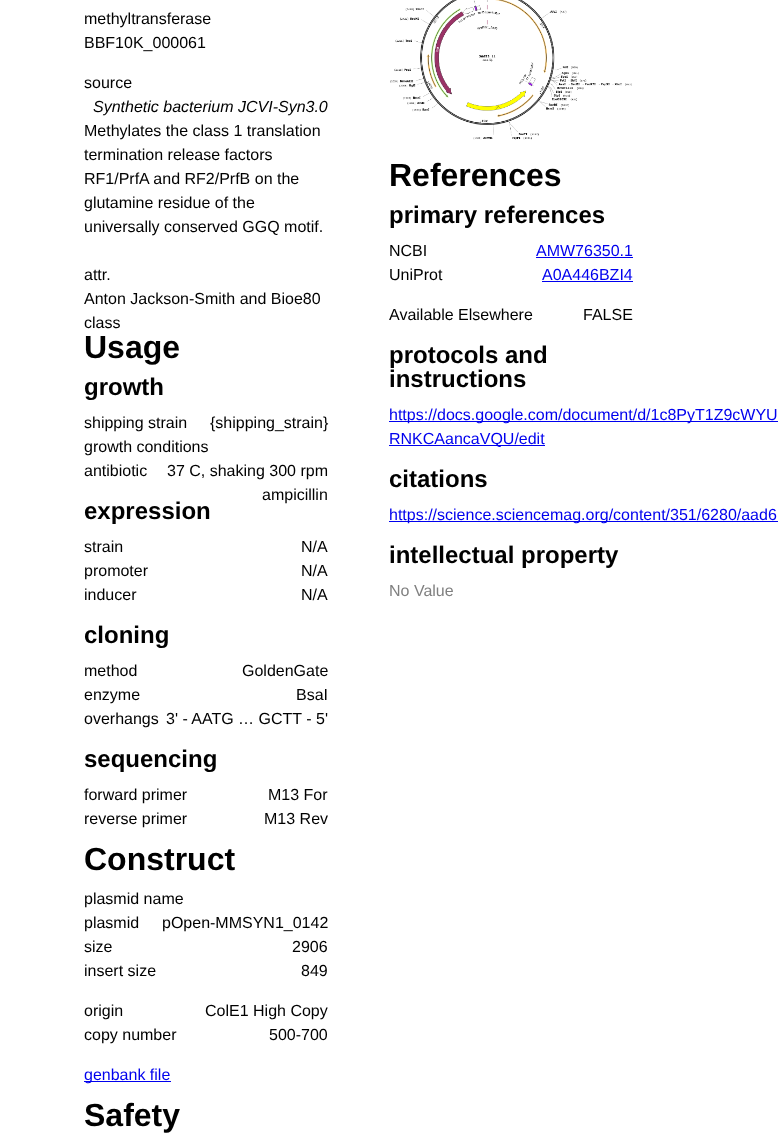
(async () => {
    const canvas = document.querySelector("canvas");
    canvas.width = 778;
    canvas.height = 1141;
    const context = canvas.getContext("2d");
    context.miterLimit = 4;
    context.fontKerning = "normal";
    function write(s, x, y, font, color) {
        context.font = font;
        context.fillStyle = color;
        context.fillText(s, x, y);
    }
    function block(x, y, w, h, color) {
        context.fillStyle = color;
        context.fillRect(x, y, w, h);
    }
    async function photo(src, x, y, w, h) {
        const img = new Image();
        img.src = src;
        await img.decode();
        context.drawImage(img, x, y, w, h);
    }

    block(0, 0, 778, 1141, "rgb(255, 255, 255)");
    write("methyltransferase", 84, 24, "16px Liberation Sans", "rgb(0, 0, 0)");
    write("BBF10K_000061", 84, 48, "16px Liberation Sans", "rgb(0, 0, 0)");
    write("source", 84, 88, "16px Liberation Sans", "rgb(0, 0, 0)");
    write("Synthetic bacterium JCVI-Syn3.0", 93, 112, "italic 16px Liberation Sans", "rgb(0, 0, 0)");
    write("Methylates the class 1 translation", 84, 136, "16px Liberation Sans", "rgb(0, 0, 0)");
    write("termination release factors", 84, 160, "16px Liberation Sans", "rgb(0, 0, 0)");
    write("RF1/PrfA and RF2/PrfB on the", 84, 184, "16px Liberation Sans", "rgb(0, 0, 0)");
    write("glutamine residue of the", 84, 208, "16px Liberation Sans", "rgb(0, 0, 0)");
    write("universally conserved GGQ motif.", 84, 232, "16px Liberation Sans", "rgb(0, 0, 0)");
    write("attr.", 84, 280, "16px Liberation Sans", "rgb(0, 0, 0)");
    write("Anton Jackson-Smith and Bioe80", 84, 304, "16px Liberation Sans", "rgb(0, 0, 0)");
    write("class", 84, 328, "16px Liberation Sans", "rgb(0, 0, 0)");
    write("Usage", 84, 358, "bold 32px Liberation Sans", "rgb(0, 0, 0)");
    write("growth", 84, 395, "bold 24px Liberation Sans", "rgb(0, 0, 0)");
    write("shipping strain", 84, 428, "16px Liberation Sans", "rgb(0, 0, 0)");
    write("{shipping_strain}", 210, 428, "16px Liberation Sans", "rgb(0, 0, 0)");
    write("growth conditions", 84, 452, "16px Liberation Sans", "rgb(0, 0, 0)");
    write("37 C, shaking 300 rpm", 167, 476, "16px Liberation Sans", "rgb(0, 0, 0)");
    write("antibiotic", 84, 476, "16px Liberation Sans", "rgb(0, 0, 0)");
    write("ampicillin", 262, 500, "16px Liberation Sans", "rgb(0, 0, 0)");
    write("expression", 84, 519, "bold 24px Liberation Sans", "rgb(0, 0, 0)");
    write("strain", 84, 552, "16px Liberation Sans", "rgb(0, 0, 0)");
    write("N/A", 301, 552, "16px Liberation Sans", "rgb(0, 0, 0)");
    write("promoter", 84, 576, "16px Liberation Sans", "rgb(0, 0, 0)");
    write("N/A", 301, 576, "16px Liberation Sans", "rgb(0, 0, 0)");
    write("inducer", 84, 600, "16px Liberation Sans", "rgb(0, 0, 0)");
    write("N/A", 301, 600, "16px Liberation Sans", "rgb(0, 0, 0)");
    write("cloning", 84, 643, "bold 24px Liberation Sans", "rgb(0, 0, 0)");
    write("method", 84, 676, "16px Liberation Sans", "rgb(0, 0, 0)");
    write("GoldenGate", 242, 676, "16px Liberation Sans", "rgb(0, 0, 0)");
    write("enzyme", 84, 700, "16px Liberation Sans", "rgb(0, 0, 0)");
    write("BsaI", 296, 700, "16px Liberation Sans", "rgb(0, 0, 0)");
    write("overhangs", 84, 724, "16px Liberation Sans", "rgb(0, 0, 0)");
    write("3' - AATG … GCTT - 5'", 166, 724, "16px Liberation Sans", "rgb(0, 0, 0)");
    write("sequencing", 84, 767, "bold 24px Liberation Sans", "rgb(0, 0, 0)");
    write("forward primer", 84, 800, "16px Liberation Sans", "rgb(0, 0, 0)");
    write("M13 For", 268, 800, "16px Liberation Sans", "rgb(0, 0, 0)");
    write("reverse primer", 84, 824, "16px Liberation Sans", "rgb(0, 0, 0)");
    write("M13 Rev", 264, 824, "16px Liberation Sans", "rgb(0, 0, 0)");
    write("Construct", 84, 870, "bold 32px Liberation Sans", "rgb(0, 0, 0)");
    write("plasmid name", 84, 904, "16px Liberation Sans", "rgb(0, 0, 0)");
    write("pOpen-MMSYN1_0142", 162, 928, "16px Liberation Sans", "rgb(0, 0, 0)");
    write("plasmid", 84, 928, "16px Liberation Sans", "rgb(0, 0, 0)");
    write("size", 84, 952, "16px Liberation Sans", "rgb(0, 0, 0)");
    write("2906", 292, 952, "16px Liberation Sans", "rgb(0, 0, 0)");
    write("insert size", 84, 976, "16px Liberation Sans", "rgb(0, 0, 0)");
    write("849", 301, 976, "16px Liberation Sans", "rgb(0, 0, 0)");
    write("origin", 84, 1016, "16px Liberation Sans", "rgb(0, 0, 0)");
    write("ColE1 High Copy", 205, 1016, "16px Liberation Sans", "rgb(0, 0, 0)");
    write("copy number", 84, 1040, "16px Liberation Sans", "rgb(0, 0, 0)");
    write("500-700", 269, 1040, "16px Liberation Sans", "rgb(0, 0, 0)");
    block(84, 1081, 87, 1, "rgb(0, 0, 238)");
    write("genbank file", 84, 1080, "16px Liberation Sans", "rgb(0, 0, 238)");
    write("Safety", 84, 1126, "bold 32px Liberation Sans", "rgb(0, 0, 0)");
    await photo("media/1.png", 390, 0, 242, 140);
    write("References", 389, 186, "bold 32px Liberation Sans", "rgb(0, 0, 0)");
    write("primary references", 389, 223, "bold 24px Liberation Sans", "rgb(0, 0, 0)");
    write("NCBI", 389, 256, "16px Liberation Sans", "rgb(0, 0, 0)");
    write("AMW76350.1", 536, 256, "16px Liberation Sans", "rgb(0, 0, 238)");
    block(536, 257, 97, 1, "rgb(0, 0, 238)");
    write("UniProt", 389, 280, "16px Liberation Sans", "rgb(0, 0, 0)");
    write("A0A446BZI4", 542, 280, "16px Liberation Sans", "rgb(0, 0, 238)");
    block(542, 281, 91, 1, "rgb(0, 0, 238)");
    write("Available Elsewhere", 389, 320, "16px Liberation Sans", "rgb(0, 0, 0)");
    write("FALSE", 583, 320, "16px Liberation Sans", "rgb(0, 0, 0)");
    write("protocols and", 389, 363, "bold 24px Liberation Sans", "rgb(0, 0, 0)");
    write("instructions", 389, 387, "bold 24px Liberation Sans", "rgb(0, 0, 0)");
    block(389, 421, 389, 1, "rgb(0, 0, 238)");
    write("https://docs.google.com/document/d/1c8PyT1Z9cWYU", 389, 420, "16px Liberation Sans", "rgb(0, 0, 238)");
    block(389, 445, 156, 1, "rgb(0, 0, 238)");
    write("RNKCAancaVQU/edit", 389, 444, "16px Liberation Sans", "rgb(0, 0, 238)");
    write("citations", 389, 487, "bold 24px Liberation Sans", "rgb(0, 0, 0)");
    block(389, 521, 389, 1, "rgb(0, 0, 238)");
    write("https://science.sciencemag.org/content/351/6280/aad6", 389, 520, "16px Liberation Sans", "rgb(0, 0, 238)");
    write("intellectual property", 389, 563, "bold 24px Liberation Sans", "rgb(0, 0, 0)");
    write("No Value", 389, 596, "16px Liberation Sans", "rgb(128, 128, 128)");
})();
